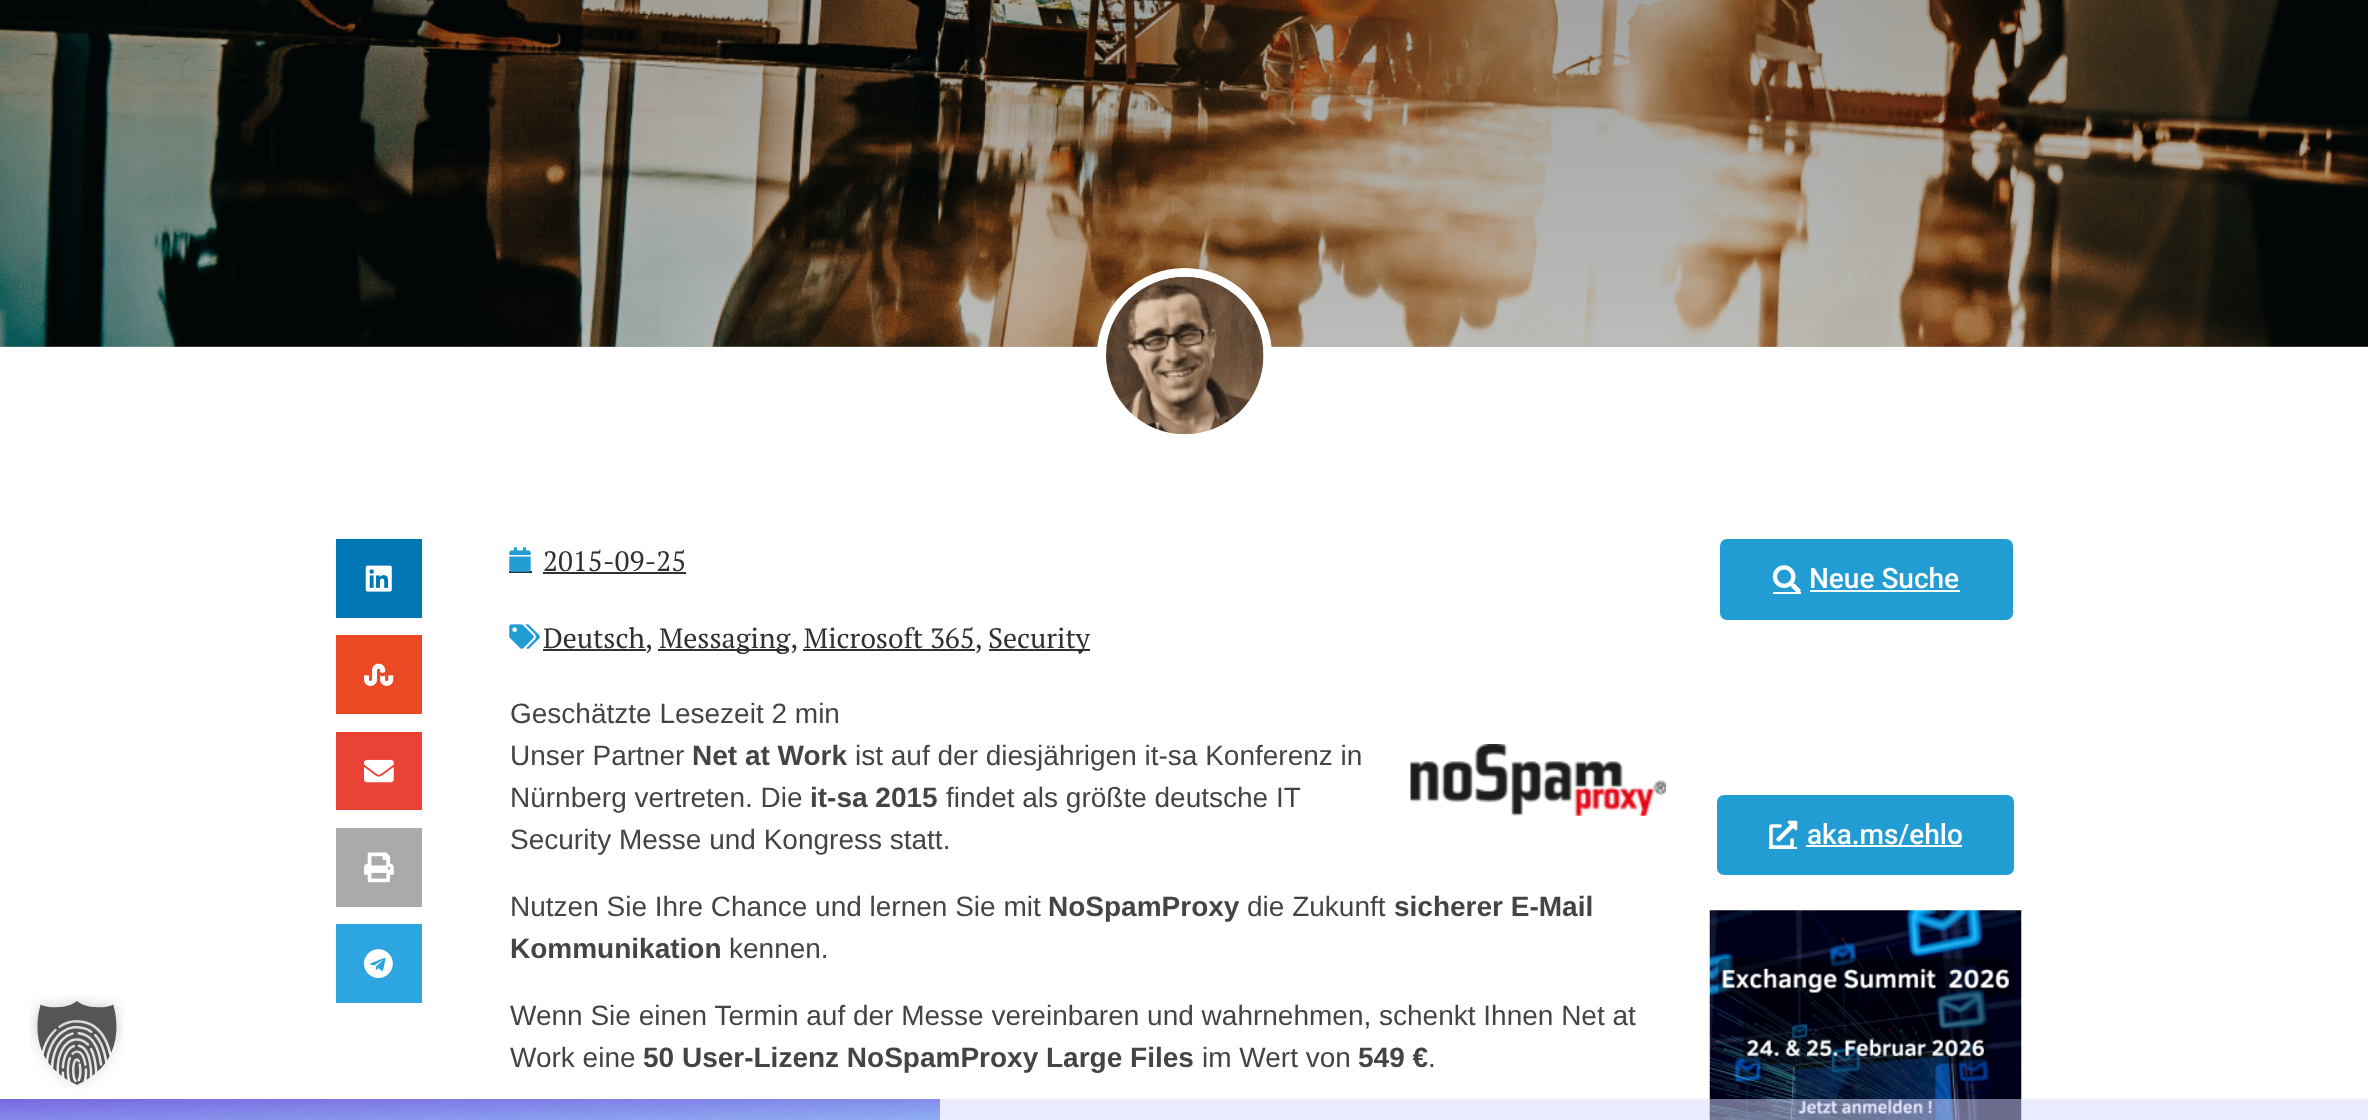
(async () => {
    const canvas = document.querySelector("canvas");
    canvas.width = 2368;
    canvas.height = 1120;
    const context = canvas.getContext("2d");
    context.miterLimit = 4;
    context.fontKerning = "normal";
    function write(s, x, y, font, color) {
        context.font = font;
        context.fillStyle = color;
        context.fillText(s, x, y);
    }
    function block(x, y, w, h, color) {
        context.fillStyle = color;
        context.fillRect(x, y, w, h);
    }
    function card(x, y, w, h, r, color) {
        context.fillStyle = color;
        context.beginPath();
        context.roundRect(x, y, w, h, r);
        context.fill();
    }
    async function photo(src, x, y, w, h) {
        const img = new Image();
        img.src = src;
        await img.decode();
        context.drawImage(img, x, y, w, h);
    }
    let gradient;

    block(0, 0, 2368, 1120, "rgb(255, 255, 255)");
    await photo("media/1.png", 30, 995, 94, 94);
    await photo("media/2.png", 0, 0, 2368, 347);
    gradient = context.createLinearGradient(1185, -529, 1185, 347);
    gradient.addColorStop(0, "rgba(0, 0, 0, 0.5)");
    gradient.addColorStop(1, "rgba(0, 0, 0, 0.25)");
    context.fillStyle = gradient;
    context.fillRect(0, 0, 2368, 347);
    context.beginPath();
    context.arc(1184.5, 355.5, 83, 0, Math.PI * 2);
    context.strokeStyle = "rgb(255, 255, 255)";
    context.lineWidth = 9;
    context.stroke();
    await photo("media/3.png", 1106, 276, 158, 159);
    block(336, 539, 86, 79, "rgb(0, 119, 181)");
    await photo("media/4.png", 365, 565, 27, 27);
    block(336, 635, 86, 79, "rgb(235, 73, 36)");
    await photo("media/5.png", 364, 663, 30, 23);
    block(336, 732, 86, 78, "rgb(234, 67, 53)");
    await photo("media/6.png", 364, 759, 30, 24);
    block(336, 828, 86, 79, "rgb(170, 170, 170)");
    await photo("media/7.png", 364, 852, 30, 31);
    block(336, 924, 86, 79, "rgb(44, 165, 224)");
    await photo("media/8.png", 364, 949, 29, 29);
    block(509, 571, 23, 2, "rgb(47, 49, 51)");
    await photo("media/9.png", 509, 547, 22, 25);
    write("2015-09-25", 543, 571, "28px PT Serif", "rgb(47, 49, 51)");
    block(543, 572, 143, 2, "rgb(47, 49, 51)");
    await photo("media/10.png", 509, 624, 31, 25);
    block(543, 649, 103, 2, "rgb(47, 49, 51)");
    write("Deutsch,", 543, 648, "28px PT Serif", "rgb(47, 49, 51)");
    block(658, 649, 131, 2, "rgb(47, 49, 51)");
    write("Messaging, Microsoft 365,", 659, 648, "28px PT Serif", "rgb(47, 49, 51)");
    block(803, 649, 172, 2, "rgb(47, 49, 51)");
    block(989, 649, 101, 2, "rgb(47, 49, 51)");
    write("Security", 988, 648, "28px PT Serif", "rgb(47, 49, 51)");
    write("Geschätzte Lesezeit 2 min", 510, 723, "28px Liberation Sans", "rgb(68, 68, 68)");
    write("Unser Partner", 510, 765, "28px Liberation Sans", "rgb(68, 68, 68)");
    write("Net at Work", 692, 765, "bold 28px Liberation Sans", "rgb(68, 68, 68)");
    write("ist auf der diesjährigen it-sa Konferenz in", 855, 765, "28px Liberation Sans", "rgb(68, 68, 68)");
    await photo("media/11.png", 1410, 744, 256, 72);
    write("Nürnberg vertreten. Die", 510, 807, "28px Liberation Sans", "rgb(68, 68, 68)");
    write("it-sa 2015", 810, 807, "bold 28px Liberation Sans", "rgb(68, 68, 68)");
    write("findet als größte deutsche IT", 946, 807, "28px Liberation Sans", "rgb(68, 68, 68)");
    write("Security Messe und Kongress statt.", 510, 849, "28px Liberation Sans", "rgb(68, 68, 68)");
    write("Nutzen Sie Ihre Chance und lernen Sie mit", 510, 916, "28px Liberation Sans", "rgb(68, 68, 68)");
    write("NoSpamProxy", 1048, 916, "bold 28px Liberation Sans", "rgb(68, 68, 68)");
    write("die Zukunft", 1247, 916, "28px Liberation Sans", "rgb(68, 68, 68)");
    write("sicherer E-Mail", 1394, 916, "bold 28px Liberation Sans", "rgb(68, 68, 68)");
    write("Kommunikation", 510, 958, "bold 28px Liberation Sans", "rgb(68, 68, 68)");
    write("kennen.", 729, 958, "28px Liberation Sans", "rgb(68, 68, 68)");
    write("Wenn Sie einen Termin auf der Messe vereinbaren und wahrnehmen, schenkt Ihnen Net at", 510, 1025, "28px Liberation Sans", "rgb(68, 68, 68)");
    write("Work eine", 510, 1067, "28px Liberation Sans", "rgb(68, 68, 68)");
    write("50 User-Lizenz NoSpamProxy Large Files", 643, 1067, "bold 28px Liberation Sans", "rgb(68, 68, 68)");
    write("im Wert von", 1202, 1067, "28px Liberation Sans", "rgb(68, 68, 68)");
    write("549 €", 1358, 1067, "bold 28px Liberation Sans", "rgb(68, 68, 68)");
    write(".", 1428, 1067, "28px Liberation Sans", "rgb(68, 68, 68)");
    card(1720, 539, 293, 81, 7, "rgb(34, 157, 212)");
    await photo("media/12.png", 1772, 565, 29, 27);
    block(1773, 592, 28, 2, "rgb(255, 255, 255)");
    write("Neue Suche", 1809, 588, "500 28px Roboto", "rgb(255, 255, 255)");
    block(1810, 590, 150, 2, "rgb(255, 255, 255)");
    card(1717, 795, 297, 80, 7, "rgb(34, 157, 212)");
    await photo("media/13.png", 1769, 820, 29, 27);
    block(1769, 847, 28, 2, "rgb(255, 255, 255)");
    block(1806, 845, 156, 2, "rgb(255, 255, 255)");
    write("aka.ms/ehlo", 1807, 844, "500 28px Roboto", "rgb(255, 255, 255)");
    await photo("media/14.png", 1709, 910, 313, 210);
    block(0, 1099, 2368, 21, "rgba(214, 216, 255, 0.5)");
    block(0, 1099, 940, 21, "rgba(85, 64, 217, 0.5)");
    gradient = context.createLinearGradient(469, 1089, 470, 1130);
    gradient.addColorStop(0, "rgba(85, 64, 217, 0.5)");
    gradient.addColorStop(1, "rgba(123, 195, 247, 0.5)");
    context.fillStyle = gradient;
    context.fillRect(0, 1099, 940, 21);
})();
